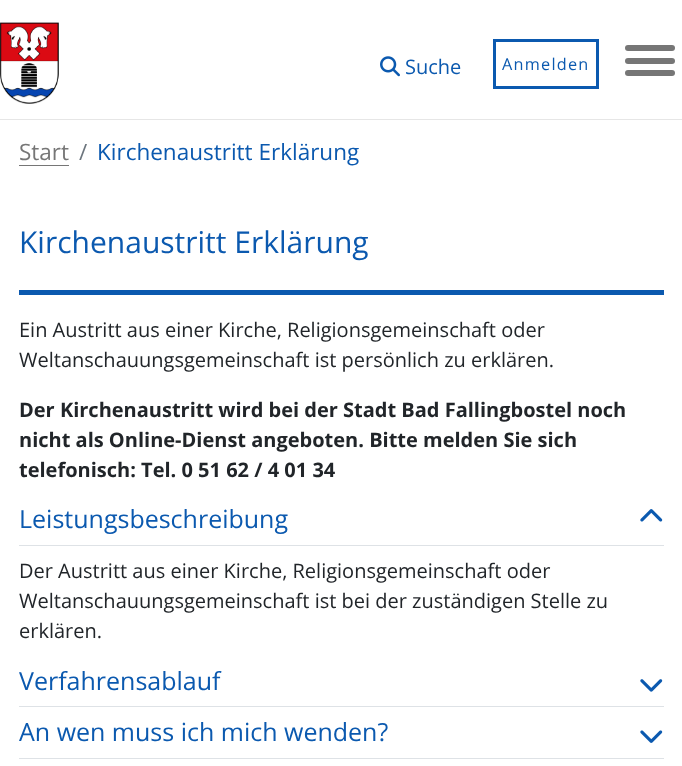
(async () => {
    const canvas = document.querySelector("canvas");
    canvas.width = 682;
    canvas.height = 766;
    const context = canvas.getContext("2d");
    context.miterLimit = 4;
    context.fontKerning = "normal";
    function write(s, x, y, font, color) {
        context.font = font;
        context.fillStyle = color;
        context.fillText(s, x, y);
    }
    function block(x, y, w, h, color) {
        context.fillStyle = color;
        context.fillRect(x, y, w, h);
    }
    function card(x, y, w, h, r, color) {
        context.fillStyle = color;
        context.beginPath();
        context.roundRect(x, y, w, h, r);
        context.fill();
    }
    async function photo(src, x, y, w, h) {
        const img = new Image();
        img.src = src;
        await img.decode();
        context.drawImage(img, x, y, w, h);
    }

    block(0, 0, 682, 766, "rgb(255, 255, 255)");
    block(0, 119, 682, 1, "rgb(230, 230, 230)");
    await photo("media/1.png", 0, 22, 59, 82);
    await photo("media/2.png", 380, 56, 20, 21);
    write("Suche", 405, 74, "20px Open Sans", "rgb(11, 89, 175)");
    context.strokeStyle = "rgb(11, 89, 175)";
    context.lineWidth = 3;
    context.strokeRect(494.5, 40.5, 103, 47);
    context.letterSpacing = "1.25px";
    write("Anmelden", 502, 70, "16.25px Open Sans", "rgb(11, 89, 175)");
    card(625, 58, 50, 6, 3, "rgb(118, 118, 118)");
    card(625, 45, 50, 6, 3, "rgb(118, 118, 118)");
    card(625, 70, 50, 6, 3, "rgb(118, 118, 118)");
    context.letterSpacing = "0px";
    write("Start", 19, 160, "22.5px Open Sans", "rgb(118, 118, 118)");
    block(19, 165, 50, 1, "rgb(118, 118, 118)");
    write("/", 79, 160, "22.5px Open Sans", "rgb(108, 117, 125)");
    write("Kirchenaustritt Erklärung", 97, 160, "22.5px Open Sans", "rgb(11, 89, 175)");
    write("Kirchenaustritt Erklärung", 19, 253, "30px Open Sans", "rgb(11, 89, 175)");
    block(19, 290, 645, 5, "rgb(11, 89, 175)");
    write("Ein Austritt aus einer Kirche, Religionsgemeinschaft oder", 19, 337, "20px Open Sans", "rgb(33, 37, 41)");
    write("Weltanschauungsgemeinschaft ist persönlich zu erklären.", 19, 367, "20px Open Sans", "rgb(33, 37, 41)");
    write("Der Kirchenaustritt wird bei der Stadt Bad Fallingbostel noch", 19, 417, "bold 20px Open Sans", "rgb(33, 37, 41)");
    write("nicht als Online-Dienst angeboten. Bitte melden Sie sich", 19, 447, "bold 20px Open Sans", "rgb(33, 37, 41)");
    write("telefonisch: Tel. 0 51 62 / 4 01 34", 19, 477, "bold 20px Open Sans", "rgb(33, 37, 41)");
    block(19, 545, 645, 1, "rgb(222, 226, 230)");
    write("Leistungsbeschreibung", 19, 528, "25px Open Sans", "rgb(11, 89, 175)");
    await photo("media/3.png", 640, 509, 23, 13);
    write("Der Austritt aus einer Kirche, Religionsgemeinschaft oder", 19, 578, "20px Open Sans", "rgb(33, 37, 41)");
    write("Weltanschauungsgemeinschaft ist bei der zuständigen Stelle zu", 19, 608, "20px Open Sans", "rgb(33, 37, 41)");
    write("erklären.", 19, 638, "20px Open Sans", "rgb(33, 37, 41)");
    block(19, 706, 645, 1, "rgb(222, 226, 230)");
    write("Verfahrensablauf", 19, 690, "25px Open Sans", "rgb(11, 89, 175)");
    await photo("media/4.png", 640, 679, 23, 13);
    block(19, 758, 645, 1, "rgb(222, 226, 230)");
    write("An wen muss ich mich wenden?", 19, 741, "25px Open Sans", "rgb(11, 89, 175)");
    await photo("media/5.png", 640, 730, 23, 13);
})();
